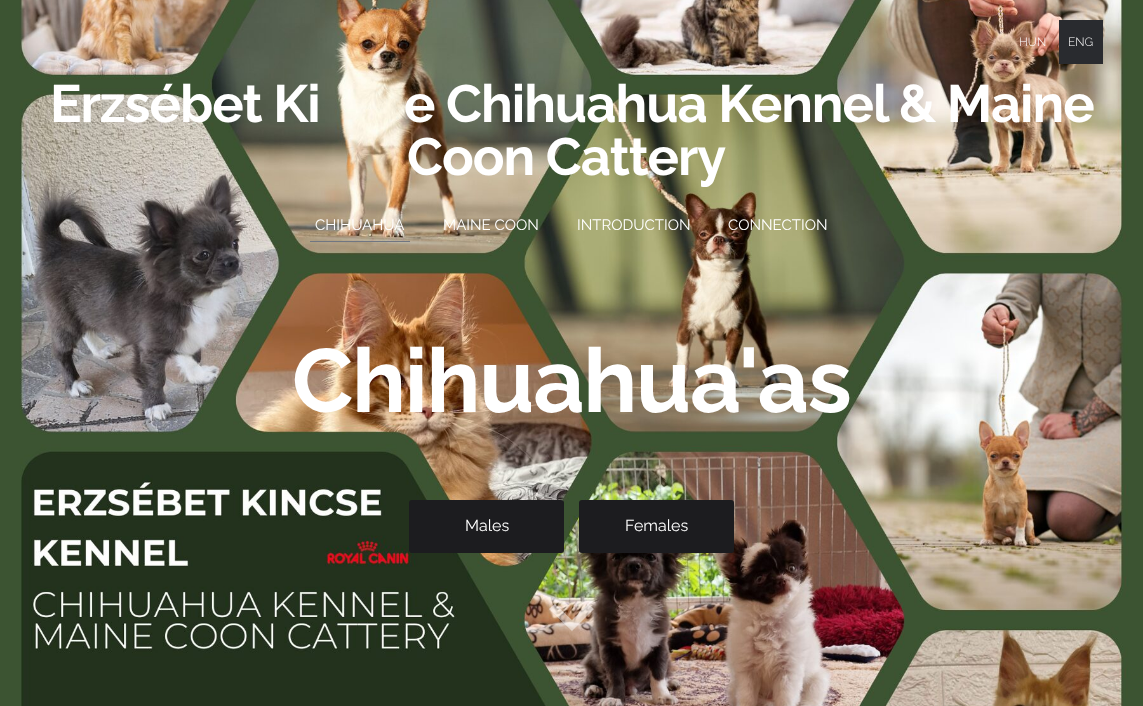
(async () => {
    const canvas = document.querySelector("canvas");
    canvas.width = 1143;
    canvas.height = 706;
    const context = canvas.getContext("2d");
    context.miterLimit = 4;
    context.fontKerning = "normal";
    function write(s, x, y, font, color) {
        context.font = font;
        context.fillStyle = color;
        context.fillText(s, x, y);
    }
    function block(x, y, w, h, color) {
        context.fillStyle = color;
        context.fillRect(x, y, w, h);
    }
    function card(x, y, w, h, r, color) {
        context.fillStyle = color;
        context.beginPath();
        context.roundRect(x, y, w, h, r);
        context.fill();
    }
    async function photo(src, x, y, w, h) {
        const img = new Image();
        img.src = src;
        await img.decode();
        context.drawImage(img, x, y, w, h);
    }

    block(0, 0, 1143, 706, "rgb(255, 255, 255)");
    await photo("media/1.png", 0, 0, 1143, 706);
    write("HUN", 1019, 46, "300 12px Raleway", "rgb(255, 255, 255)");
    block(1059, 20, 44, 44, "rgb(41, 43, 47)");
    write("ENG", 1068, 46, "300 12px Raleway", "rgb(255, 255, 255)");
    context.letterSpacing = "-1px";
    write("Erzsébet Ki", 50, 122, "bold 52.5px Raleway", "rgb(255, 255, 255)");
    write("e Chihuahua Kennel & Maine", 404, 122, "bold 52.5px Raleway", "rgb(255, 255, 255)");
    write("Coon Cattery", 407, 175, "bold 52.5px Raleway", "rgb(255, 255, 255)");
    block(310, 241, 100, 1, "rgb(112, 118, 130)");
    context.letterSpacing = "0px";
    write("CHIHUAHUA", 315, 230, "15px Raleway", "rgb(255, 255, 255)");
    write("MAINE COON", 443, 230, "15px Raleway", "rgb(255, 255, 255)");
    write("INTRODUCTION", 577, 230, "15px Raleway", "rgb(255, 255, 255)");
    write("CONNECTION", 728, 230, "15px Raleway", "rgb(255, 255, 255)");
    context.letterSpacing = "-1.3px";
    write("Chihuahua'as", 292, 412, "bold 89.5px Raleway", "rgb(255, 255, 255)");
    card(409, 500, 155, 53, 3, "rgb(28, 28, 31)");
    context.letterSpacing = "0px";
    write("Males", 465, 531, "16px Raleway", "rgb(255, 255, 255)");
    card(579, 500, 155, 53, 3, "rgb(28, 28, 31)");
    write("Females", 625, 531, "16px Raleway", "rgb(255, 255, 255)");
    context.fillStyle = "rgba(255, 255, 255, 0.5)";
    context.beginPath();
    context.moveTo(572, 620);
    context.lineTo(588, 604);
    context.lineTo(594, 609);
    context.lineTo(572, 631);
    context.lineTo(549, 609);
    context.lineTo(555, 604);
    context.closePath();
    context.fill();
})();
